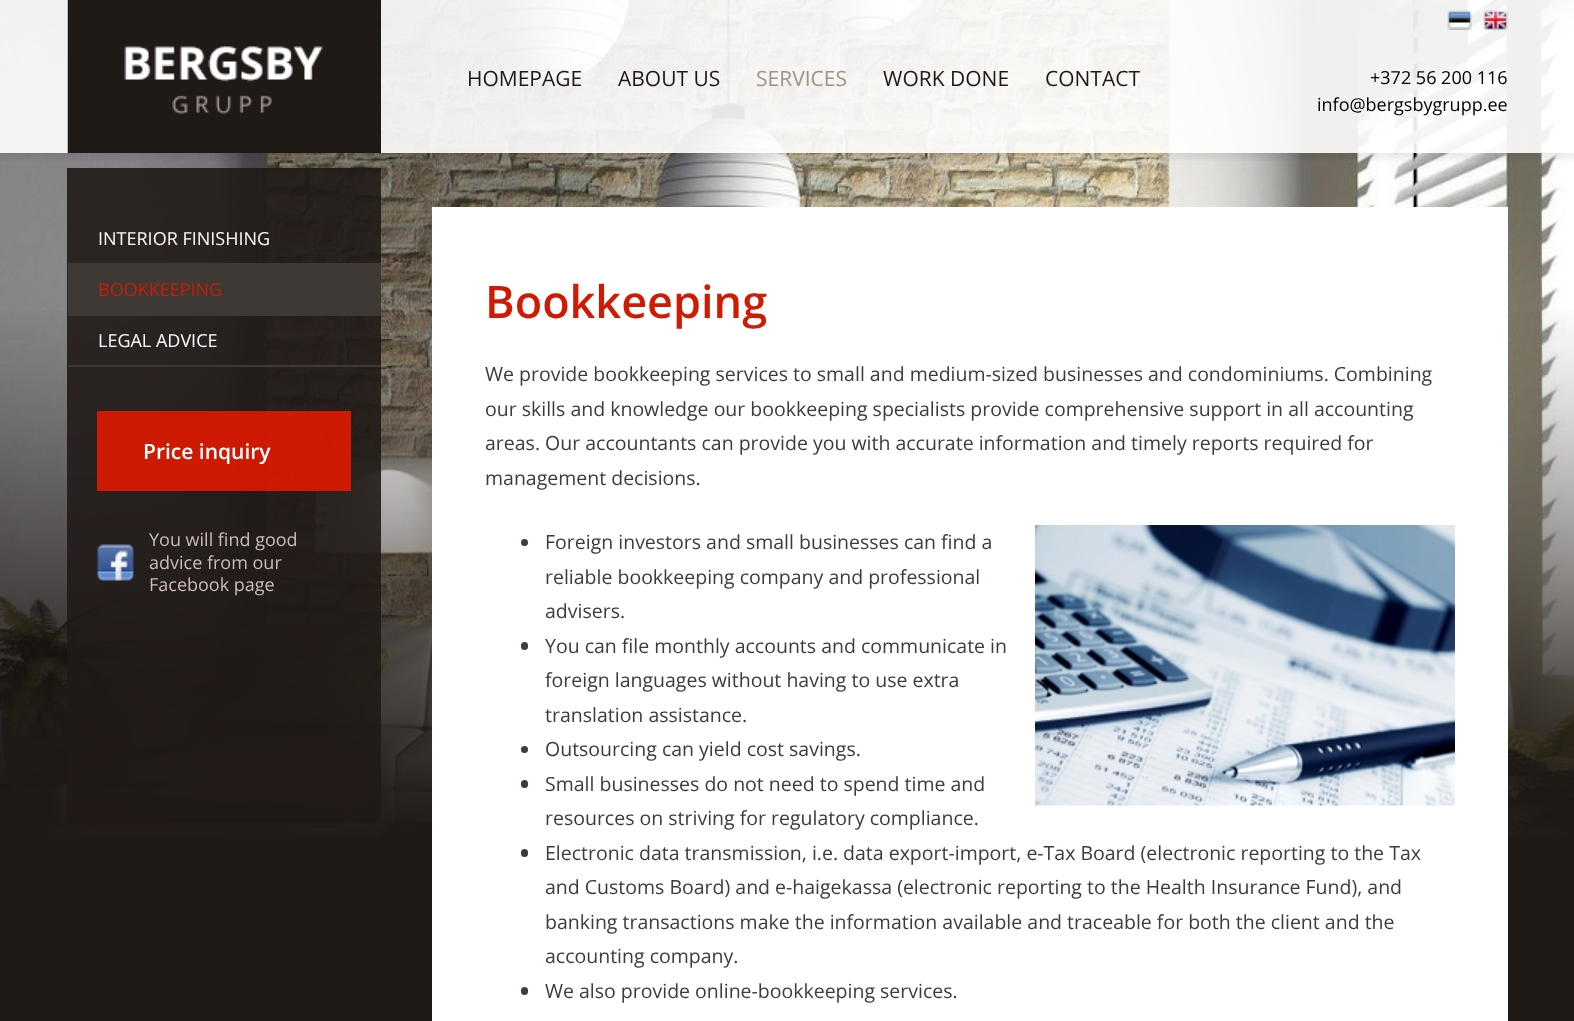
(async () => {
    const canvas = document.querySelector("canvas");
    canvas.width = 1574;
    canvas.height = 1021;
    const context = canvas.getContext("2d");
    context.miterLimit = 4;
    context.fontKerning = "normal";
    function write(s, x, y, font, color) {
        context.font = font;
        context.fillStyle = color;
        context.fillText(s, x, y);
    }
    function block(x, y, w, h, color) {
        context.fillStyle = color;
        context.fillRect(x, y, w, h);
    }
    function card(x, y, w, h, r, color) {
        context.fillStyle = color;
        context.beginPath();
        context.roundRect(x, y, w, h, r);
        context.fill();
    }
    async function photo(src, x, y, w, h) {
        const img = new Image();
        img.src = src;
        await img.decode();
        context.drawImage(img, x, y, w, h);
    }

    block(0, 0, 1574, 1021, "rgb(32, 26, 23)");
    await photo("media/1.png", 0, 0, 1574, 838);
    await photo("media/2.png", 0, 311, 1574, 535);
    block(0, 0, 1574, 153, "rgba(255, 255, 255, 0.9)");
    await photo("media/3.png", 67, 0, 314, 153);
    write("HOMEPAGE", 467, 86, "21px Open Sans", "rgb(32, 26, 23)");
    write("ABOUT US", 618, 86, "21px Open Sans", "rgb(32, 26, 23)");
    write("SERVICES", 756, 86, "21px Open Sans", "rgb(159, 147, 132)");
    write("WORK DONE", 883, 86, "21px Open Sans", "rgb(32, 26, 23)");
    write("CONTACT", 1045, 86, "21px Open Sans", "rgb(32, 26, 23)");
    await photo("media/4.png", 1447, 10, 25, 20);
    await photo("media/5.png", 1483, 10, 25, 20);
    write("+372 56 200 116", 1370, 84, "18px Open Sans", "rgb(0, 0, 0)");
    write("info@bergsbygrupp.ee", 1317, 111, "18px Open Sans", "rgb(0, 0, 0)");
    await photo("media/6.png", 0, 153, 1574, 8);
    block(67, 168, 314, 655, "rgba(32, 26, 23, 0.9)");
    block(68, 263, 313, 53, "rgb(63, 57, 54)");
    write("INTERIOR FINISHING", 98, 245, "18px Open Sans", "rgb(255, 255, 255)");
    write("BOOKKEEPING", 98, 296, "18px Open Sans", "rgb(207, 27, 3)");
    block(68, 365, 313, 2, "rgb(63, 57, 54)");
    write("LEGAL ADVICE", 98, 347, "18px Open Sans", "rgb(255, 255, 255)");
    block(97, 411, 254, 80, "rgba(225, 26, 0, 0.9)");
    write("Price inquiry", 143, 459, "600 21px Open Sans", "rgb(255, 255, 255)");
    await photo("media/7.png", 97, 544, 37, 37);
    write("You will find good", 149, 546, "18px Open Sans", "rgb(202, 188, 182)");
    write("advice from our", 149, 569, "18px Open Sans", "rgb(202, 188, 182)");
    write("Facebook page", 149, 591, "18px Open Sans", "rgb(202, 188, 182)");
    block(432, 207, 1076, 814, "rgb(255, 255, 255)");
    write("Bookkeeping", 485, 318, "600 45px Open Sans", "rgb(207, 27, 3)");
    write("We provide bookkeeping services to small and medium-sized businesses and condominiums. Combining", 485, 381, "19.5px Open Sans", "rgb(65, 58, 54)");
    write("our skills and knowledge our bookkeeping specialists provide comprehensive support in all accounting", 485, 416, "19.5px Open Sans", "rgb(65, 58, 54)");
    write("areas. Our accountants can provide you with accurate information and timely reports required for", 485, 450, "19.5px Open Sans", "rgb(65, 58, 54)");
    write("management decisions.", 485, 485, "19.5px Open Sans", "rgb(65, 58, 54)");
    context.beginPath();
    context.arc(524.5, 542.5, 3.5, 0, Math.PI * 2);
    context.fill();
    write("Foreign investors and small businesses can find a", 545, 549, "19.5px Open Sans", "rgb(65, 58, 54)");
    await photo("media/8.png", 1035, 525, 420, 281);
    write("reliable bookkeeping company and professional", 545, 584, "19.5px Open Sans", "rgb(65, 58, 54)");
    write("advisers.", 545, 618, "19.5px Open Sans", "rgb(65, 58, 54)");
    card(521, 642, 7, 8, 3.5, "rgb(65, 58, 54)");
    write("You can file monthly accounts and communicate in", 545, 653, "19.5px Open Sans", "rgb(65, 58, 54)");
    write("foreign languages without having to use extra", 545, 687, "19.5px Open Sans", "rgb(65, 58, 54)");
    write("translation assistance.", 545, 722, "19.5px Open Sans", "rgb(65, 58, 54)");
    context.beginPath();
    context.arc(524.5, 749.5, 3.5, 0, Math.PI * 2);
    context.fill();
    write("Outsourcing can yield cost savings.", 545, 756, "19.5px Open Sans", "rgb(65, 58, 54)");
    card(521, 780, 7, 8, 3.5, "rgb(65, 58, 54)");
    write("Small businesses do not need to spend time and", 545, 791, "19.5px Open Sans", "rgb(65, 58, 54)");
    write("resources on striving for regulatory compliance.", 545, 825, "19.5px Open Sans", "rgb(65, 58, 54)");
    card(521, 849, 7, 8, 3.5, "rgb(65, 58, 54)");
    write("Electronic data transmission, i.e. data export-import, e-Tax Board (electronic reporting to the Tax", 545, 860, "19.5px Open Sans", "rgb(65, 58, 54)");
    write("and Customs Board) and e-haigekassa (electronic reporting to the Health Insurance Fund), and", 545, 894, "19.5px Open Sans", "rgb(65, 58, 54)");
    write("banking transactions make the information available and traceable for both the client and the", 545, 929, "19.5px Open Sans", "rgb(65, 58, 54)");
    write("accounting company.", 545, 963, "19.5px Open Sans", "rgb(65, 58, 54)");
    card(521, 987, 7, 8, 3.5, "rgb(65, 58, 54)");
    write("We also provide online-bookkeeping services.", 545, 998, "19.5px Open Sans", "rgb(65, 58, 54)");
})();
